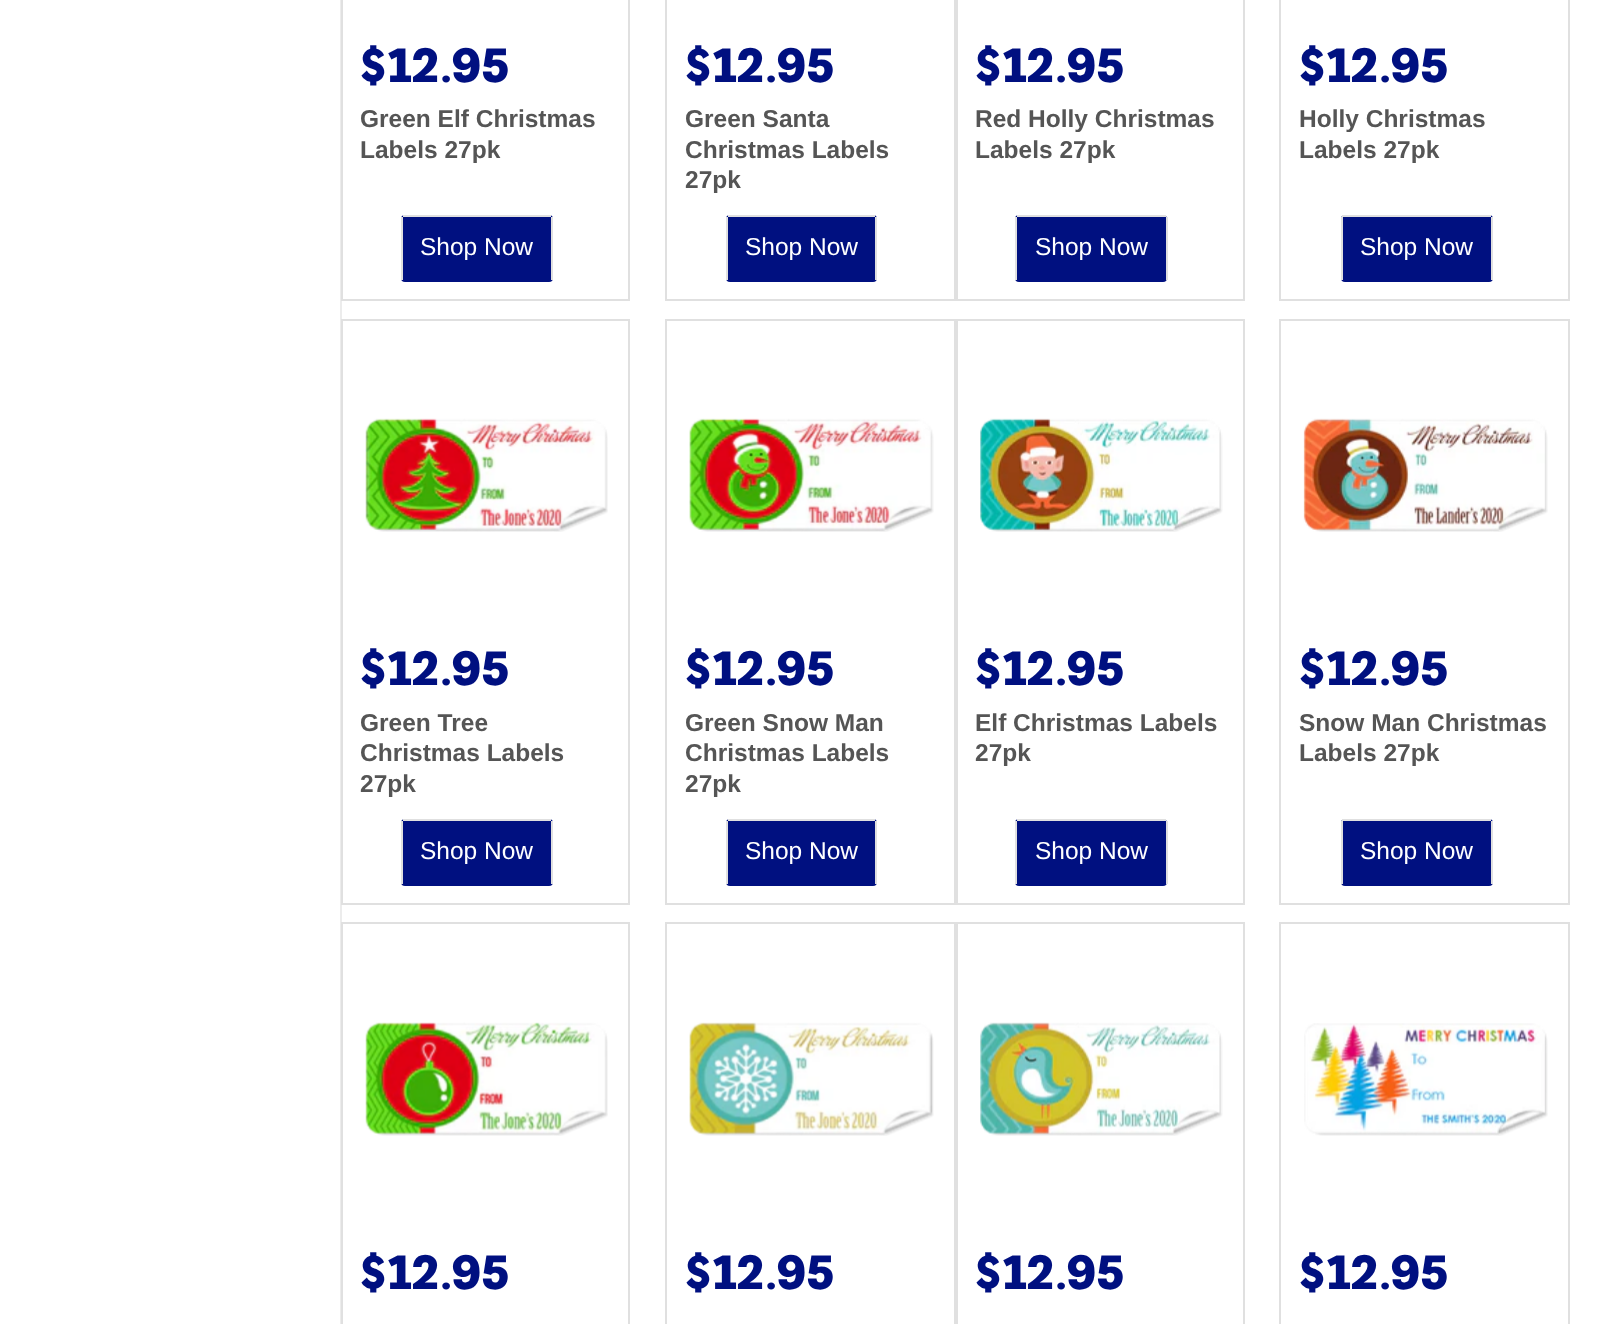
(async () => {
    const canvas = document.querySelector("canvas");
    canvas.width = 1601;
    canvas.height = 1324;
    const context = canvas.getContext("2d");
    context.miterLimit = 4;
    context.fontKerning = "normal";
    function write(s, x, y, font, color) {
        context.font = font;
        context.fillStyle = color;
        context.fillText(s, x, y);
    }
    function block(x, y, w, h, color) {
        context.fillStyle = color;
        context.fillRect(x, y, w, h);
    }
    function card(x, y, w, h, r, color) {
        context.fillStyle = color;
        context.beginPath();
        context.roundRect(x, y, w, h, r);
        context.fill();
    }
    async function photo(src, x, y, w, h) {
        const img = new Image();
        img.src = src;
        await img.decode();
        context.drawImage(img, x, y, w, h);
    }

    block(0, 0, 1601, 1324, "rgb(255, 255, 255)");
    block(340, 0, 2, 1324, "rgb(236, 236, 236)");
    block(628, 0, 2, 301, "rgb(224, 224, 224)");
    block(341, 0, 2, 198, "rgb(224, 224, 224)");
    write("$12.95", 360, 82, "bold 45.5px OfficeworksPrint", "rgb(0, 16, 128)");
    write("Green Elf Christmas", 360, 127, "bold 24.5px Liberation Sans", "rgb(85, 85, 85)");
    write("Labels 27pk", 360, 158, "bold 24.5px Liberation Sans", "rgb(85, 85, 85)");
    block(341, 299, 289, 2, "rgb(224, 224, 224)");
    block(341, 198, 2, 103, "rgb(224, 224, 224)");
    card(401, 215, 152, 67, 4, "rgb(0, 16, 128)");
    block(403, 215, 148, 2, "rgb(224, 224, 224)");
    block(551, 217, 2, 63, "rgb(224, 224, 224)");
    block(401, 217, 2, 63, "rgb(224, 224, 224)");
    write("Shop Now", 420, 255, "24.5px Liberation Sans", "rgb(255, 255, 255)");
    block(954, 0, 2, 301, "rgb(224, 224, 224)");
    block(665, 0, 2, 198, "rgb(224, 224, 224)");
    write("$12.95", 685, 82, "bold 45.5px OfficeworksPrint", "rgb(0, 16, 128)");
    write("Green Santa", 685, 127, "bold 24.5px Liberation Sans", "rgb(85, 85, 85)");
    write("Christmas Labels", 685, 158, "bold 24.5px Liberation Sans", "rgb(85, 85, 85)");
    write("27pk", 685, 188, "bold 24.5px Liberation Sans", "rgb(85, 85, 85)");
    block(665, 299, 291, 2, "rgb(224, 224, 224)");
    block(665, 198, 2, 103, "rgb(224, 224, 224)");
    card(726, 215, 151, 67, 4, "rgb(0, 16, 128)");
    block(728, 215, 147, 2, "rgb(224, 224, 224)");
    block(875, 217, 2, 63, "rgb(224, 224, 224)");
    block(726, 217, 2, 63, "rgb(224, 224, 224)");
    write("Shop Now", 745, 255, "24.5px Liberation Sans", "rgb(255, 255, 255)");
    block(1243, 0, 2, 301, "rgb(224, 224, 224)");
    block(956, 0, 2, 198, "rgb(224, 224, 224)");
    write("$12.95", 975, 82, "bold 45.5px OfficeworksPrint", "rgb(0, 16, 128)");
    write("Red Holly Christmas", 975, 127, "bold 24.5px Liberation Sans", "rgb(85, 85, 85)");
    write("Labels 27pk", 975, 158, "bold 24.5px Liberation Sans", "rgb(85, 85, 85)");
    block(956, 299, 288, 2, "rgb(224, 224, 224)");
    block(956, 198, 2, 103, "rgb(224, 224, 224)");
    card(1015, 215, 152, 67, 4, "rgb(0, 16, 128)");
    block(1017, 215, 149, 2, "rgb(224, 224, 224)");
    block(1166, 217, 2, 63, "rgb(224, 224, 224)");
    block(1015, 217, 2, 63, "rgb(224, 224, 224)");
    write("Shop Now", 1035, 255, "24.5px Liberation Sans", "rgb(255, 255, 255)");
    block(1568, 0, 2, 301, "rgb(224, 224, 224)");
    block(1279, 0, 2, 198, "rgb(224, 224, 224)");
    write("$12.95", 1299, 82, "bold 45.5px OfficeworksPrint", "rgb(0, 16, 128)");
    write("Holly Christmas", 1299, 127, "bold 24.5px Liberation Sans", "rgb(85, 85, 85)");
    write("Labels 27pk", 1299, 158, "bold 24.5px Liberation Sans", "rgb(85, 85, 85)");
    block(1279, 299, 291, 2, "rgb(224, 224, 224)");
    block(1279, 198, 2, 103, "rgb(224, 224, 224)");
    card(1341, 215, 152, 67, 4, "rgb(0, 16, 128)");
    block(1342, 215, 149, 2, "rgb(224, 224, 224)");
    block(1491, 217, 2, 63, "rgb(224, 224, 224)");
    block(1341, 217, 2, 63, "rgb(224, 224, 224)");
    write("Shop Now", 1360, 255, "24.5px Liberation Sans", "rgb(255, 255, 255)");
    block(341, 319, 289, 2, "rgb(224, 224, 224)");
    block(628, 319, 2, 586, "rgb(224, 224, 224)");
    block(341, 319, 2, 483, "rgb(224, 224, 224)");
    await photo("media/1.png", 365, 418, 243, 114);
    write("$12.95", 360, 685, "bold 45.5px OfficeworksPrint", "rgb(0, 16, 128)");
    write("Green Tree", 360, 731, "bold 24.5px Liberation Sans", "rgb(85, 85, 85)");
    write("Christmas Labels", 360, 761, "bold 24.5px Liberation Sans", "rgb(85, 85, 85)");
    write("27pk", 360, 792, "bold 24.5px Liberation Sans", "rgb(85, 85, 85)");
    block(341, 903, 289, 2, "rgb(224, 224, 224)");
    block(341, 802, 2, 103, "rgb(224, 224, 224)");
    card(401, 819, 152, 67, 4, "rgb(0, 16, 128)");
    block(403, 819, 148, 2, "rgb(224, 224, 224)");
    block(551, 821, 2, 63, "rgb(224, 224, 224)");
    block(401, 821, 2, 63, "rgb(224, 224, 224)");
    write("Shop Now", 420, 859, "24.5px Liberation Sans", "rgb(255, 255, 255)");
    block(665, 319, 579, 2, "rgb(224, 224, 224)");
    block(954, 319, 2, 586, "rgb(224, 224, 224)");
    block(665, 319, 2, 483, "rgb(224, 224, 224)");
    await photo("media/2.png", 689, 418, 245, 114);
    write("$12.95", 685, 685, "bold 45.5px OfficeworksPrint", "rgb(0, 16, 128)");
    write("Green Snow Man", 685, 731, "bold 24.5px Liberation Sans", "rgb(85, 85, 85)");
    write("Christmas Labels", 685, 761, "bold 24.5px Liberation Sans", "rgb(85, 85, 85)");
    write("27pk", 685, 792, "bold 24.5px Liberation Sans", "rgb(85, 85, 85)");
    block(665, 903, 291, 2, "rgb(224, 224, 224)");
    block(665, 802, 2, 103, "rgb(224, 224, 224)");
    card(726, 819, 151, 67, 4, "rgb(0, 16, 128)");
    block(728, 819, 147, 2, "rgb(224, 224, 224)");
    block(875, 821, 2, 63, "rgb(224, 224, 224)");
    block(726, 821, 2, 63, "rgb(224, 224, 224)");
    write("Shop Now", 745, 859, "24.5px Liberation Sans", "rgb(255, 255, 255)");
    block(1243, 319, 2, 586, "rgb(224, 224, 224)");
    block(956, 319, 2, 483, "rgb(224, 224, 224)");
    await photo("media/3.png", 980, 418, 243, 114);
    write("$12.95", 975, 685, "bold 45.5px OfficeworksPrint", "rgb(0, 16, 128)");
    write("Elf Christmas Labels", 975, 731, "bold 24.5px Liberation Sans", "rgb(85, 85, 85)");
    write("27pk", 975, 761, "bold 24.5px Liberation Sans", "rgb(85, 85, 85)");
    block(956, 903, 288, 2, "rgb(224, 224, 224)");
    block(956, 802, 2, 103, "rgb(224, 224, 224)");
    card(1015, 819, 152, 67, 4, "rgb(0, 16, 128)");
    block(1017, 819, 149, 2, "rgb(224, 224, 224)");
    block(1166, 821, 2, 63, "rgb(224, 224, 224)");
    block(1015, 821, 2, 63, "rgb(224, 224, 224)");
    write("Shop Now", 1035, 859, "24.5px Liberation Sans", "rgb(255, 255, 255)");
    block(1279, 319, 291, 2, "rgb(224, 224, 224)");
    block(1568, 319, 2, 586, "rgb(224, 224, 224)");
    block(1279, 319, 2, 483, "rgb(224, 224, 224)");
    await photo("media/4.png", 1303, 418, 245, 114);
    write("$12.95", 1299, 685, "bold 45.5px OfficeworksPrint", "rgb(0, 16, 128)");
    write("Snow Man Christmas", 1299, 731, "bold 24.5px Liberation Sans", "rgb(85, 85, 85)");
    write("Labels 27pk", 1299, 761, "bold 24.5px Liberation Sans", "rgb(85, 85, 85)");
    block(1279, 903, 291, 2, "rgb(224, 224, 224)");
    block(1279, 802, 2, 103, "rgb(224, 224, 224)");
    card(1341, 819, 152, 67, 4, "rgb(0, 16, 128)");
    block(1342, 819, 149, 2, "rgb(224, 224, 224)");
    block(1491, 821, 2, 63, "rgb(224, 224, 224)");
    block(1341, 821, 2, 63, "rgb(224, 224, 224)");
    write("Shop Now", 1360, 859, "24.5px Liberation Sans", "rgb(255, 255, 255)");
    block(341, 922, 289, 2, "rgb(224, 224, 224)");
    block(628, 922, 2, 402, "rgb(224, 224, 224)");
    block(341, 922, 2, 402, "rgb(224, 224, 224)");
    await photo("media/5.png", 365, 1022, 243, 114);
    write("$12.95", 360, 1289, "bold 45.5px OfficeworksPrint", "rgb(0, 16, 128)");
    block(665, 922, 579, 2, "rgb(224, 224, 224)");
    block(954, 922, 4, 402, "rgb(224, 224, 224)");
    block(665, 922, 2, 402, "rgb(224, 224, 224)");
    await photo("media/6.png", 689, 1022, 245, 114);
    write("$12.95", 685, 1289, "bold 45.5px OfficeworksPrint", "rgb(0, 16, 128)");
    block(1243, 922, 2, 402, "rgb(224, 224, 224)");
    await photo("media/7.png", 980, 1022, 243, 114);
    write("$12.95", 975, 1289, "bold 45.5px OfficeworksPrint", "rgb(0, 16, 128)");
    block(1279, 922, 291, 2, "rgb(224, 224, 224)");
    block(1568, 922, 2, 402, "rgb(224, 224, 224)");
    block(1279, 922, 2, 402, "rgb(224, 224, 224)");
    await photo("media/8.png", 1304, 1023, 244, 113);
    write("$12.95", 1299, 1289, "bold 45.5px OfficeworksPrint", "rgb(0, 16, 128)");
})();
